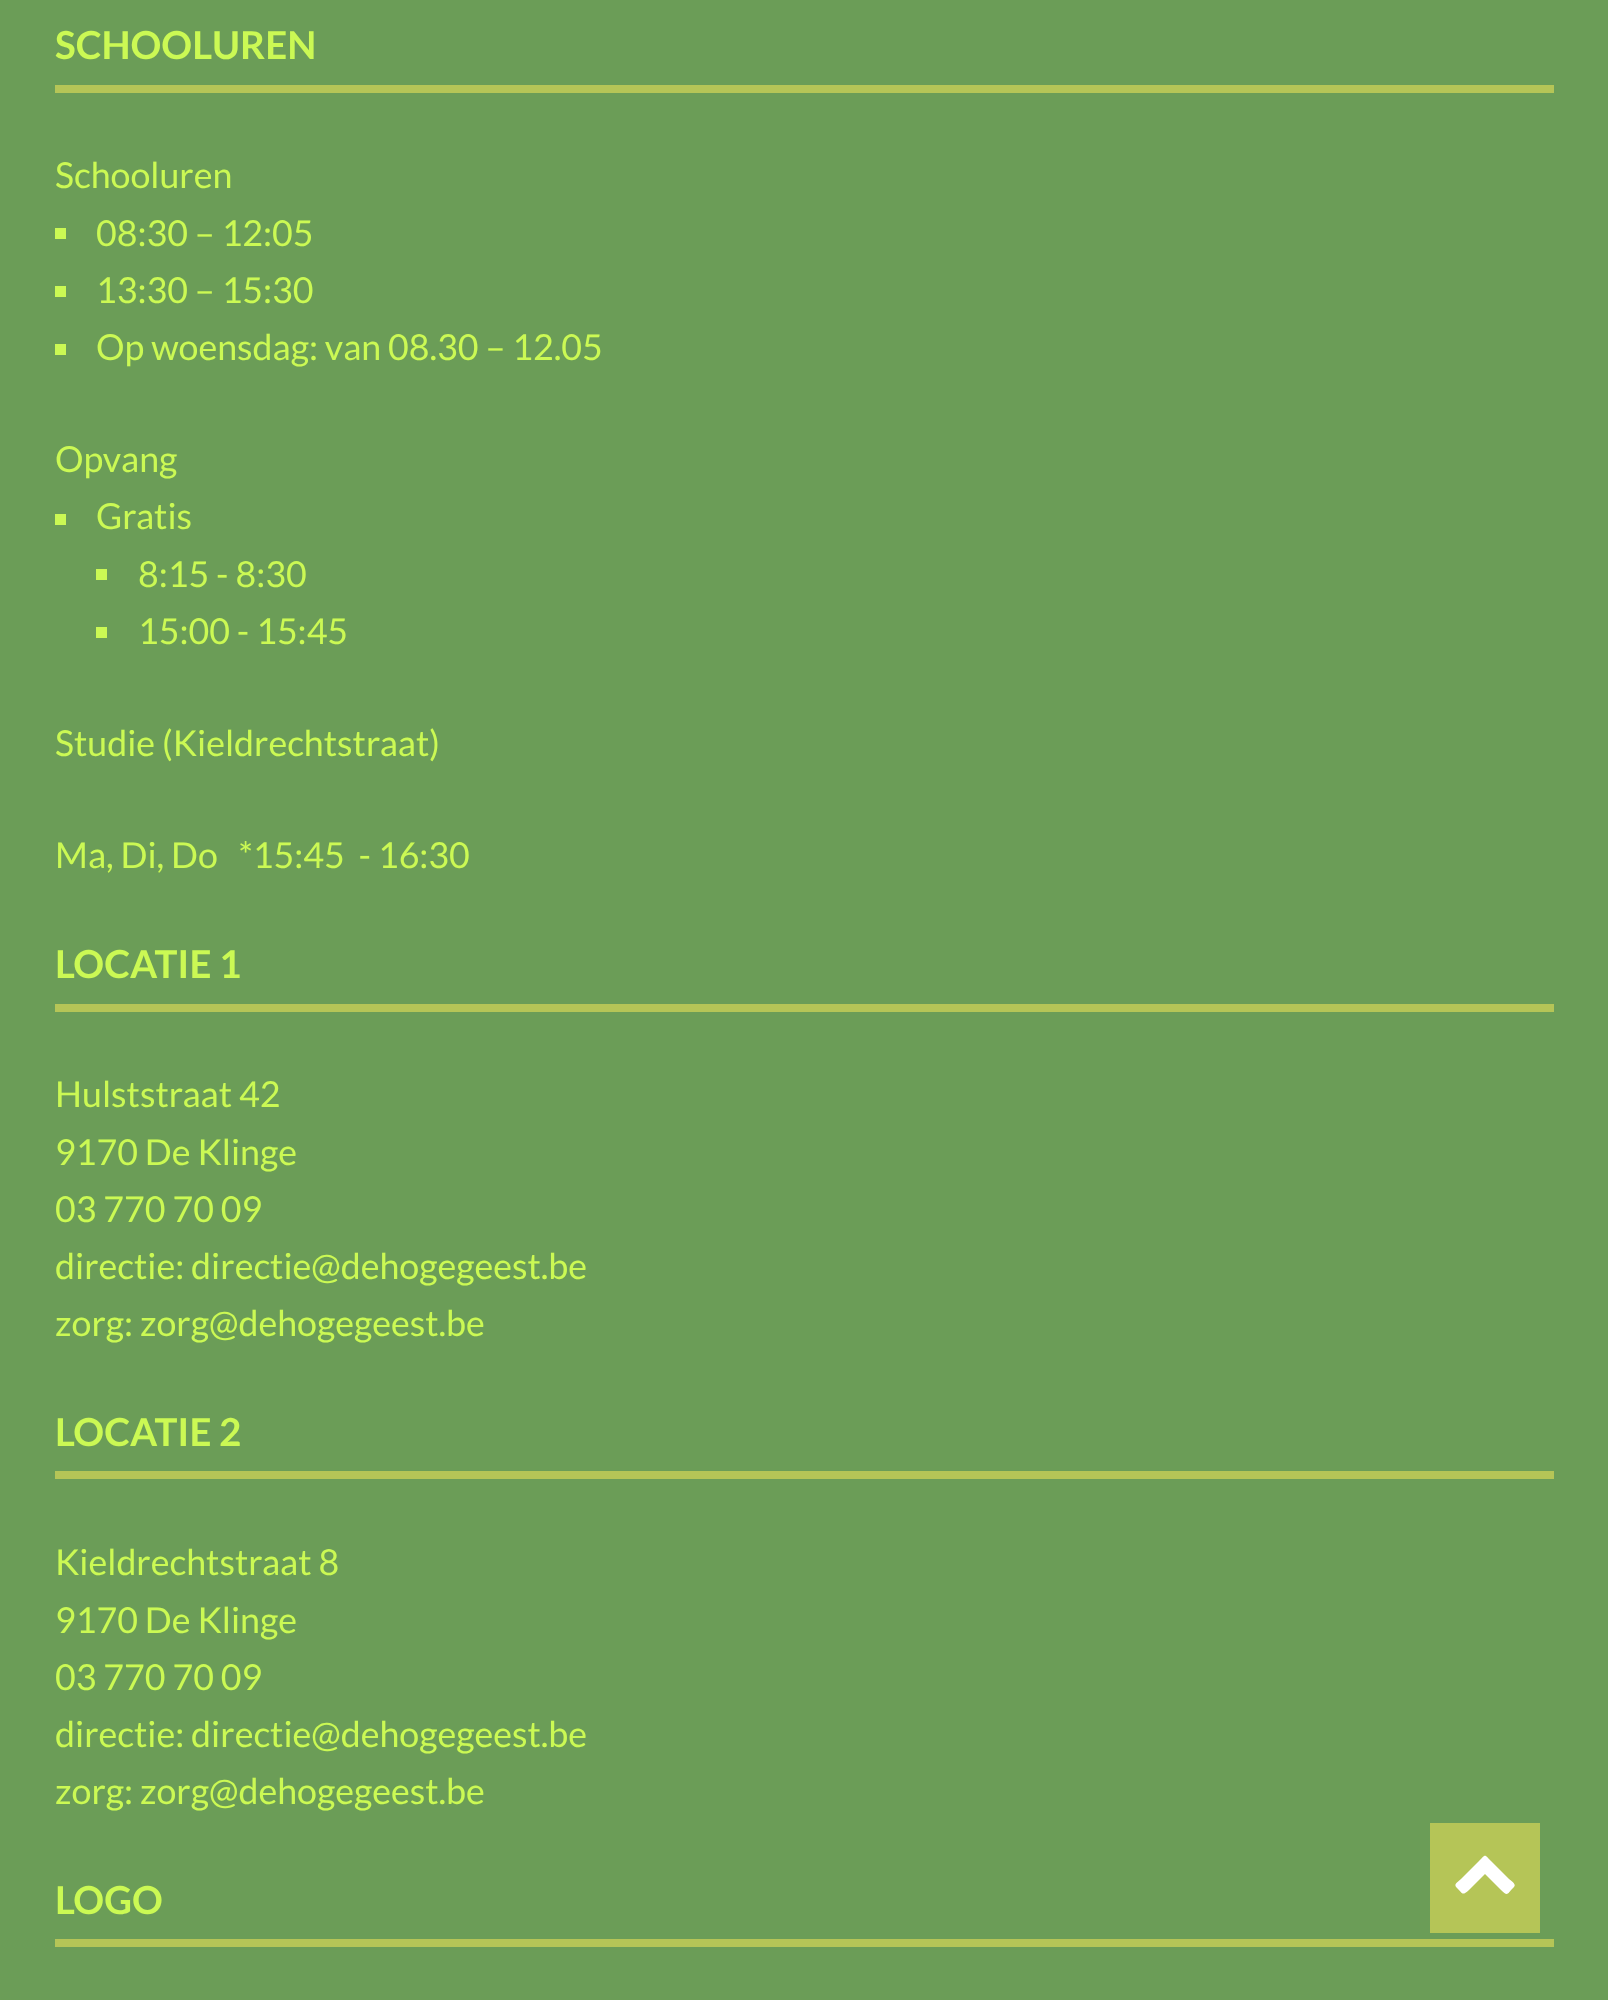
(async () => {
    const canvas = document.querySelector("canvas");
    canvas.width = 1608;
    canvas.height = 2000;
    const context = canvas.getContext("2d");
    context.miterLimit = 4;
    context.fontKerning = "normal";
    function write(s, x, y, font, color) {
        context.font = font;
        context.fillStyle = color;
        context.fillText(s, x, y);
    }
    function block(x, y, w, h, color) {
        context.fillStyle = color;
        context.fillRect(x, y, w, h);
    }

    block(0, 0, 1608, 2000, "rgb(107, 157, 87)");
    block(55, 85, 1499, 8, "rgb(181, 197, 87)");
    write("SCHOOLUREN", 55, 59, "bold 38.5px Lato", "rgb(203, 249, 84)");
    write("Schooluren", 55, 188, "35.75px Lato", "rgb(203, 249, 84)");
    block(55, 228, 11, 11, "rgb(203, 249, 84)");
    write("08:30 – 12:05", 96, 246, "35.75px Lato", "rgb(203, 249, 84)");
    block(55, 286, 11, 11, "rgb(203, 249, 84)");
    write("13:30 – 15:30", 96, 303, "35.75px Lato", "rgb(203, 249, 84)");
    block(55, 344, 11, 11, "rgb(203, 249, 84)");
    write("Op woensdag: van 08.30 – 12.05", 96, 360, "35.75px Lato", "rgb(203, 249, 84)");
    write("Opvang", 55, 472, "35.75px Lato", "rgb(203, 249, 84)");
    block(55, 514, 11, 11, "rgb(203, 249, 84)");
    write("Gratis", 96, 529, "35.75px Lato", "rgb(203, 249, 84)");
    block(96, 569, 11, 11, "rgb(203, 249, 84)");
    write("8:15 - 8:30", 138, 587, "35.75px Lato", "rgb(203, 249, 84)");
    block(96, 627, 11, 11, "rgb(203, 249, 84)");
    write("15:00 - 15:45", 138, 644, "35.75px Lato", "rgb(203, 249, 84)");
    write("Studie (Kieldrechtstraat)", 55, 756, "35.75px Lato", "rgb(203, 249, 84)");
    write("Ma, Di, Do   *15:45  - 16:30", 55, 868, "35.75px Lato", "rgb(203, 249, 84)");
    block(55, 1004, 1499, 8, "rgb(181, 197, 87)");
    write("LOCATIE 1", 55, 978, "bold 38.5px Lato", "rgb(203, 249, 84)");
    write("Hulststraat 42", 55, 1107, "35.75px Lato", "rgb(203, 249, 84)");
    write("9170 De Klinge", 55, 1165, "35.75px Lato", "rgb(203, 249, 84)");
    write("03 770 70 09", 55, 1222, "35.75px Lato", "rgb(203, 249, 84)");
    write("directie: directie@dehogegeest.be", 55, 1279, "35.75px Lato", "rgb(203, 249, 84)");
    write("zorg: zorg@dehogegeest.be", 55, 1336, "35.75px Lato", "rgb(203, 249, 84)");
    block(55, 1471, 1499, 8, "rgb(181, 197, 87)");
    write("LOCATIE 2", 55, 1446, "bold 38.5px Lato", "rgb(203, 249, 84)");
    write("Kieldrechtstraat 8", 55, 1575, "35.75px Lato", "rgb(203, 249, 84)");
    write("9170 De Klinge", 55, 1633, "35.75px Lato", "rgb(203, 249, 84)");
    write("03 770 70 09", 55, 1690, "35.75px Lato", "rgb(203, 249, 84)");
    write("directie: directie@dehogegeest.be", 55, 1747, "35.75px Lato", "rgb(203, 249, 84)");
    write("zorg: zorg@dehogegeest.be", 55, 1804, "35.75px Lato", "rgb(203, 249, 84)");
    block(55, 1939, 1499, 8, "rgb(181, 197, 87)");
    write("LOGO", 55, 1914, "bold 38.5px Lato", "rgb(203, 249, 84)");
    block(1430, 1823, 110, 110, "rgb(181, 197, 87)");
    context.fillStyle = "rgb(255, 255, 255)";
    context.beginPath();
    context.moveTo(1514, 1887);
    context.bezierCurveTo(1507, 1894, 1508, 1897, 1501, 1890);
    context.lineTo(1485, 1874);
    context.lineTo(1469, 1890);
    context.bezierCurveTo(1462, 1896, 1463, 1894, 1457, 1888);
    context.bezierCurveTo(1453, 1884, 1457, 1883, 1461, 1879);
    context.lineTo(1479, 1861);
    context.bezierCurveTo(1486, 1854, 1484, 1854, 1491, 1861);
    context.lineTo(1509, 1879);
    context.bezierCurveTo(1510, 1880, 1517, 1884, 1514, 1887);
    context.closePath();
    context.fill();
})();
